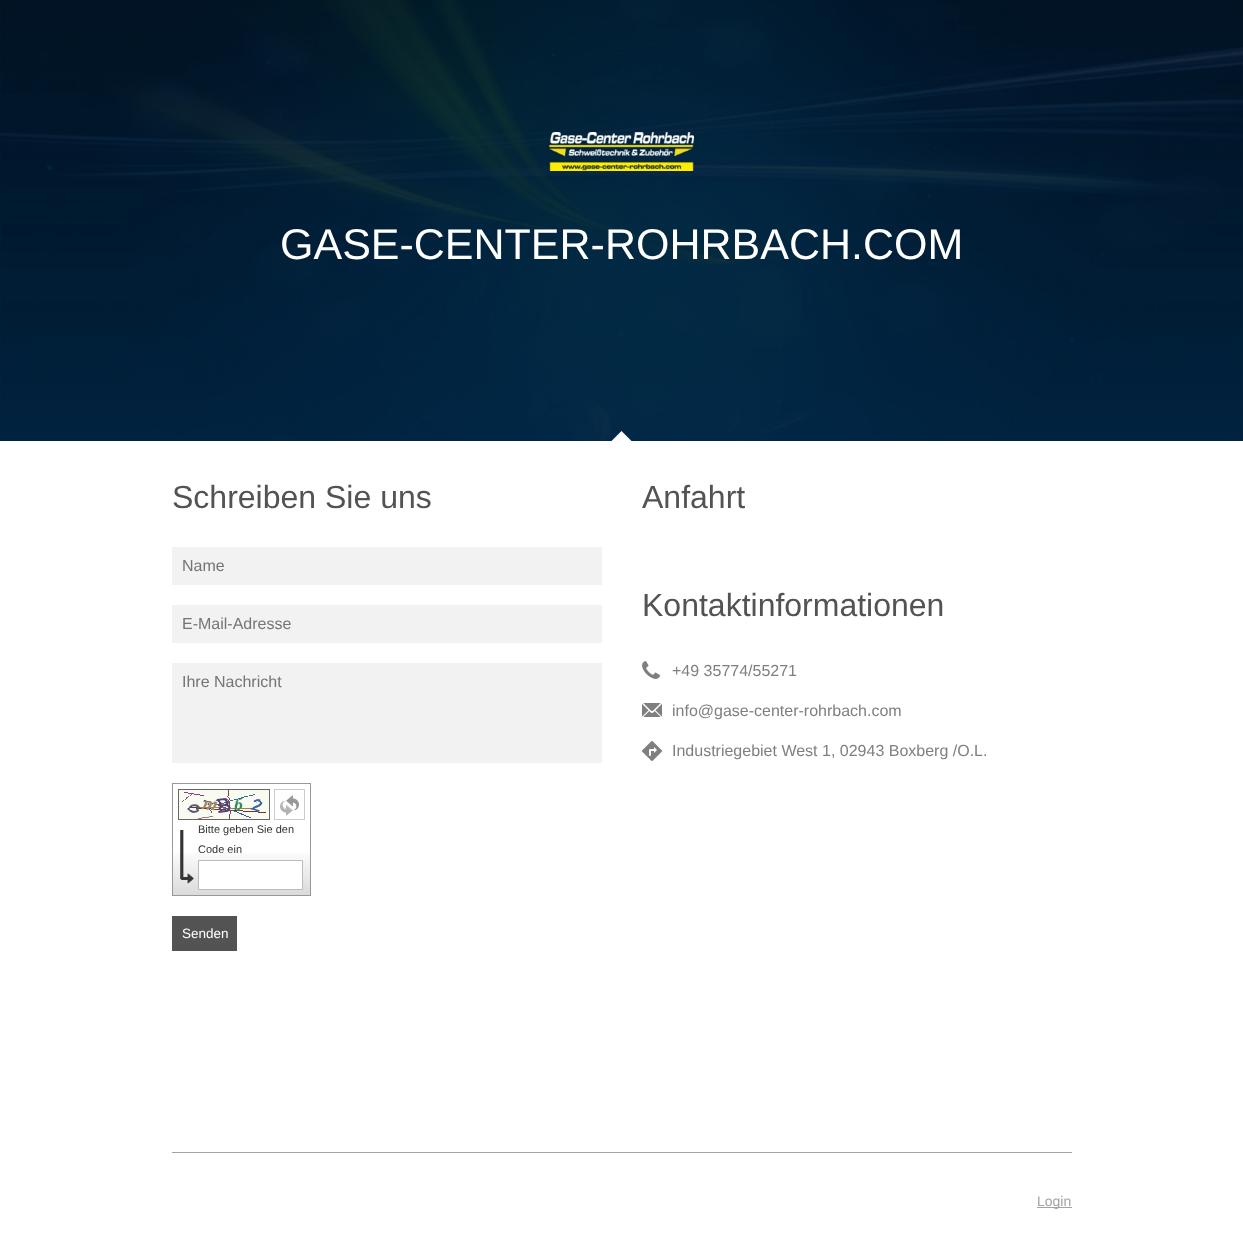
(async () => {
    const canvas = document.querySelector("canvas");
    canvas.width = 1243;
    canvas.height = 1252;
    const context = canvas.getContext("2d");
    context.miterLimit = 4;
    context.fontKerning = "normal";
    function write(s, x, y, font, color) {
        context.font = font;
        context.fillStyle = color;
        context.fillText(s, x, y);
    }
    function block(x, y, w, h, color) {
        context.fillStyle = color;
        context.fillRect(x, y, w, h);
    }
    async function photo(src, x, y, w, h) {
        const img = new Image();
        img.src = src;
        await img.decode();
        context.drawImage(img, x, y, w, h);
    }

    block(0, 0, 1243, 1252, "rgb(255, 255, 255)");
    await photo("media/1.png", 0, 0, 1243, 441);
    await photo("media/2.png", 549, 132, 145, 39);
    write("GASE-CENTER-ROHRBACH.COM", 280, 259, "43px Liberation Sans", "rgb(255, 255, 255)");
    context.beginPath();
    context.moveTo(621.5, 431);
    context.lineTo(635.5, 445);
    context.lineTo(621.5, 459.5);
    context.lineTo(607.5, 445);
    context.closePath();
    context.fill();
    write("Schreiben Sie uns", 172, 508, "32px Liberation Sans", "rgb(83, 83, 83)");
    block(172, 547, 430, 38, "rgb(242, 242, 242)");
    write("Name", 182, 571, "16px Liberation Sans", "rgb(117, 117, 117)");
    block(172, 605, 430, 38, "rgb(242, 242, 242)");
    write("E-Mail-Adresse", 182, 629, "16px Liberation Sans", "rgb(117, 117, 117)");
    block(172, 663, 430, 100, "rgb(242, 242, 242)");
    write("Ihre Nachricht", 182, 687, "16px Liberation Sans", "rgb(117, 117, 117)");
    await photo("media/3.png", 173, 853, 137, 42);
    context.strokeStyle = "rgb(153, 153, 153)";
    context.strokeRect(172.5, 783.5, 138, 112);
    context.strokeStyle = "rgb(102, 102, 102)";
    context.strokeRect(178.5, 789.5, 91, 30);
    await photo("media/4.png", 179, 790, 90, 29);
    await photo("media/5.png", 280, 795, 19, 21);
    context.strokeStyle = "rgb(204, 204, 204)";
    context.strokeRect(274.5, 789.5, 30, 30);
    await photo("media/6.png", 180, 830, 14, 54);
    write("Bitte geben Sie den", 198, 833, "11px Liberation Sans", "rgb(51, 51, 51)");
    write("Code ein", 198, 853, "11px Liberation Sans", "rgb(51, 51, 51)");
    context.fillStyle = "rgb(255, 255, 255)";
    context.beginPath();
    context.rect(198.5, 860.5, 104, 29);
    context.fill();
    context.strokeStyle = "rgb(187, 187, 187)";
    context.stroke();
    block(172, 916, 65, 35, "rgb(83, 83, 83)");
    write("Senden", 182, 938, "13.5px Liberation Sans", "rgb(255, 255, 255)");
    write("Anfahrt", 642, 508, "32px Liberation Sans", "rgb(83, 83, 83)");
    write("Kontaktinformationen", 642, 616, "32px Liberation Sans", "rgb(83, 83, 83)");
    await photo("media/7.png", 642, 661, 18, 18);
    write("+49 35774/55271", 672, 676, "16px Liberation Sans", "rgb(127, 127, 127)");
    await photo("media/8.png", 642, 703, 20, 14);
    write("info@gase-center-rohrbach.com", 672, 716, "16px Liberation Sans", "rgb(127, 127, 127)");
    await photo("media/9.png", 642, 741, 20, 20);
    write("Industriegebiet West 1, 02943 Boxberg /O.L.", 672, 756, "16px Liberation Sans", "rgb(127, 127, 127)");
    block(172, 1152, 900, 1, "rgb(163, 163, 163)");
    block(1037, 1207, 35, 1, "rgb(163, 163, 163)");
    write("Login", 1037, 1206, "14px Liberation Sans", "rgb(163, 163, 163)");
})();
